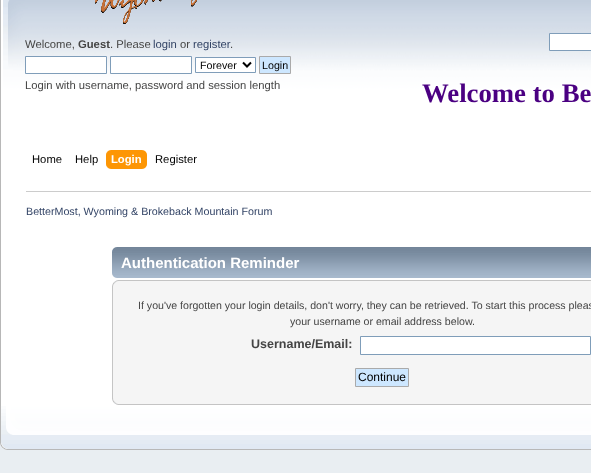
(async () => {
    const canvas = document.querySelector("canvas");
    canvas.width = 591;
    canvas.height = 473;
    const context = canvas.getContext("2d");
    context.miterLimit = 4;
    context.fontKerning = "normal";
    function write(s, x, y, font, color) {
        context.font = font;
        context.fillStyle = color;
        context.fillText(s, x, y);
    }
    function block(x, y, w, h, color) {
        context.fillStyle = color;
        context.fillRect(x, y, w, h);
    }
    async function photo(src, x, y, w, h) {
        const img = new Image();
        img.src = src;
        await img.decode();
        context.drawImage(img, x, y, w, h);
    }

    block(0, 0, 591, 473, "rgb(233, 238, 242)");
    await photo("media/1.png", 0, 0, 591, 185);
    await photo("media/2.png", 95, 0, 102, 24);
    write("Welcome,", 25, 48, "11.25px Liberation Sans", "rgb(68, 68, 68)");
    write("Guest", 78, 48, "bold 11.25px Liberation Sans", "rgb(68, 68, 68)");
    write(". Please", 110, 48, "11.25px Liberation Sans", "rgb(68, 68, 68)");
    write("login", 153, 48, "11.25px Liberation Sans", "rgb(51, 68, 102)");
    write("or", 180, 48, "11.25px Liberation Sans", "rgb(68, 68, 68)");
    write("register", 193, 48, "11.25px Liberation Sans", "rgb(51, 68, 102)");
    write(".", 230, 48, "11.25px Liberation Sans", "rgb(68, 68, 68)");
    context.fillStyle = "rgb(255, 255, 255)";
    context.beginPath();
    context.rect(25.5, 56.5, 81, 17);
    context.fill();
    context.strokeStyle = "rgb(127, 157, 185)";
    context.stroke();
    context.beginPath();
    context.rect(110.5, 56.5, 81, 17);
    context.fill();
    context.stroke();
    context.beginPath();
    context.rect(195.5, 57.5, 60, 15);
    context.fill();
    context.stroke();
    context.beginPath();
    context.moveTo(243, 62.5);
    context.lineTo(247, 66.5);
    context.lineTo(251, 62.5);
    context.strokeStyle = "rgb(0, 0, 0)";
    context.lineWidth = 2;
    context.stroke();
    write("Forever", 200, 69, "10.7px Liberation Sans", "rgb(0, 0, 0)");
    context.fillStyle = "rgb(205, 231, 255)";
    context.beginPath();
    context.rect(259.5, 56.5, 31, 17);
    context.fill();
    context.strokeStyle = "rgb(170, 170, 170)";
    context.lineWidth = 1;
    context.stroke();
    write("Login", 262, 69, "10.7px Liberation Sans", "rgb(0, 0, 0)");
    write("Login with username, password and session length", 25, 89, "11.25px Liberation Sans", "rgb(68, 68, 68)");
    context.fillStyle = "rgb(255, 255, 255)";
    context.beginPath();
    context.rect(549.5, 33.5, 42, 17);
    context.fill();
    context.strokeStyle = "rgb(127, 157, 185)";
    context.stroke();
    write("Welcome to Be", 422, 102, "bold 26.75px Liberation Serif", "rgb(75, 0, 130)");
    write("Home", 32, 163, "11.25px Liberation Sans", "rgb(0, 0, 0)");
    write("Help", 75, 163, "11.25px Liberation Sans", "rgb(0, 0, 0)");
    await photo("media/3.png", 111, 150, 36, 19);
    await photo("media/4.png", 106, 150, 5, 19);
    write("Login", 111, 163, "bold 11.25px Liberation Sans", "rgb(255, 255, 255)");
    write("Register", 155, 163, "11.25px Liberation Sans", "rgb(0, 0, 0)");
    block(1, 185, 590, 221, "rgb(255, 255, 255)");
    block(0, 185, 1, 221, "rgb(183, 183, 183)");
    block(26, 191, 565, 1, "rgb(204, 204, 204)");
    write("BetterMost, Wyoming & Brokeback Mountain Forum", 26, 215, "10.7px Liberation Sans", "rgb(51, 68, 102)");
    await photo("media/5.png", 112, 247, 479, 31);
    write("Authentication Reminder", 121, 268, "bold 15px Liberation Sans", "rgb(255, 255, 255)");
    await photo("media/6.png", 112, 280, 479, 11);
    block(113, 291, 478, 103, "rgb(245, 245, 245)");
    block(112, 291, 1, 103, "rgb(197, 197, 197)");
    write("If you've forgotten your login details, don't worry, they can be retrieved. To start this process pleas", 138, 309, "10.6px Liberation Sans", "rgb(68, 68, 68)");
    write("your username or email address below.", 290, 325, "10.6px Liberation Sans", "rgb(68, 68, 68)");
    write("Username/Email:", 251, 348, "bold 12.5px Liberation Sans", "rgb(68, 68, 68)");
    context.fillStyle = "rgb(255, 255, 255)";
    context.beginPath();
    context.rect(360.5, 336.5, 230, 18);
    context.fill();
    context.stroke();
    context.fillStyle = "rgb(205, 231, 255)";
    context.beginPath();
    context.rect(355.5, 368.5, 53, 18);
    context.fill();
    context.strokeStyle = "rgb(170, 170, 170)";
    context.stroke();
    write("Continue", 358, 381, "12px Liberation Sans", "rgb(0, 0, 0)");
    await photo("media/7.png", 112, 394, 479, 11);
    await photo("media/8.png", 0, 406, 591, 44);
})();
